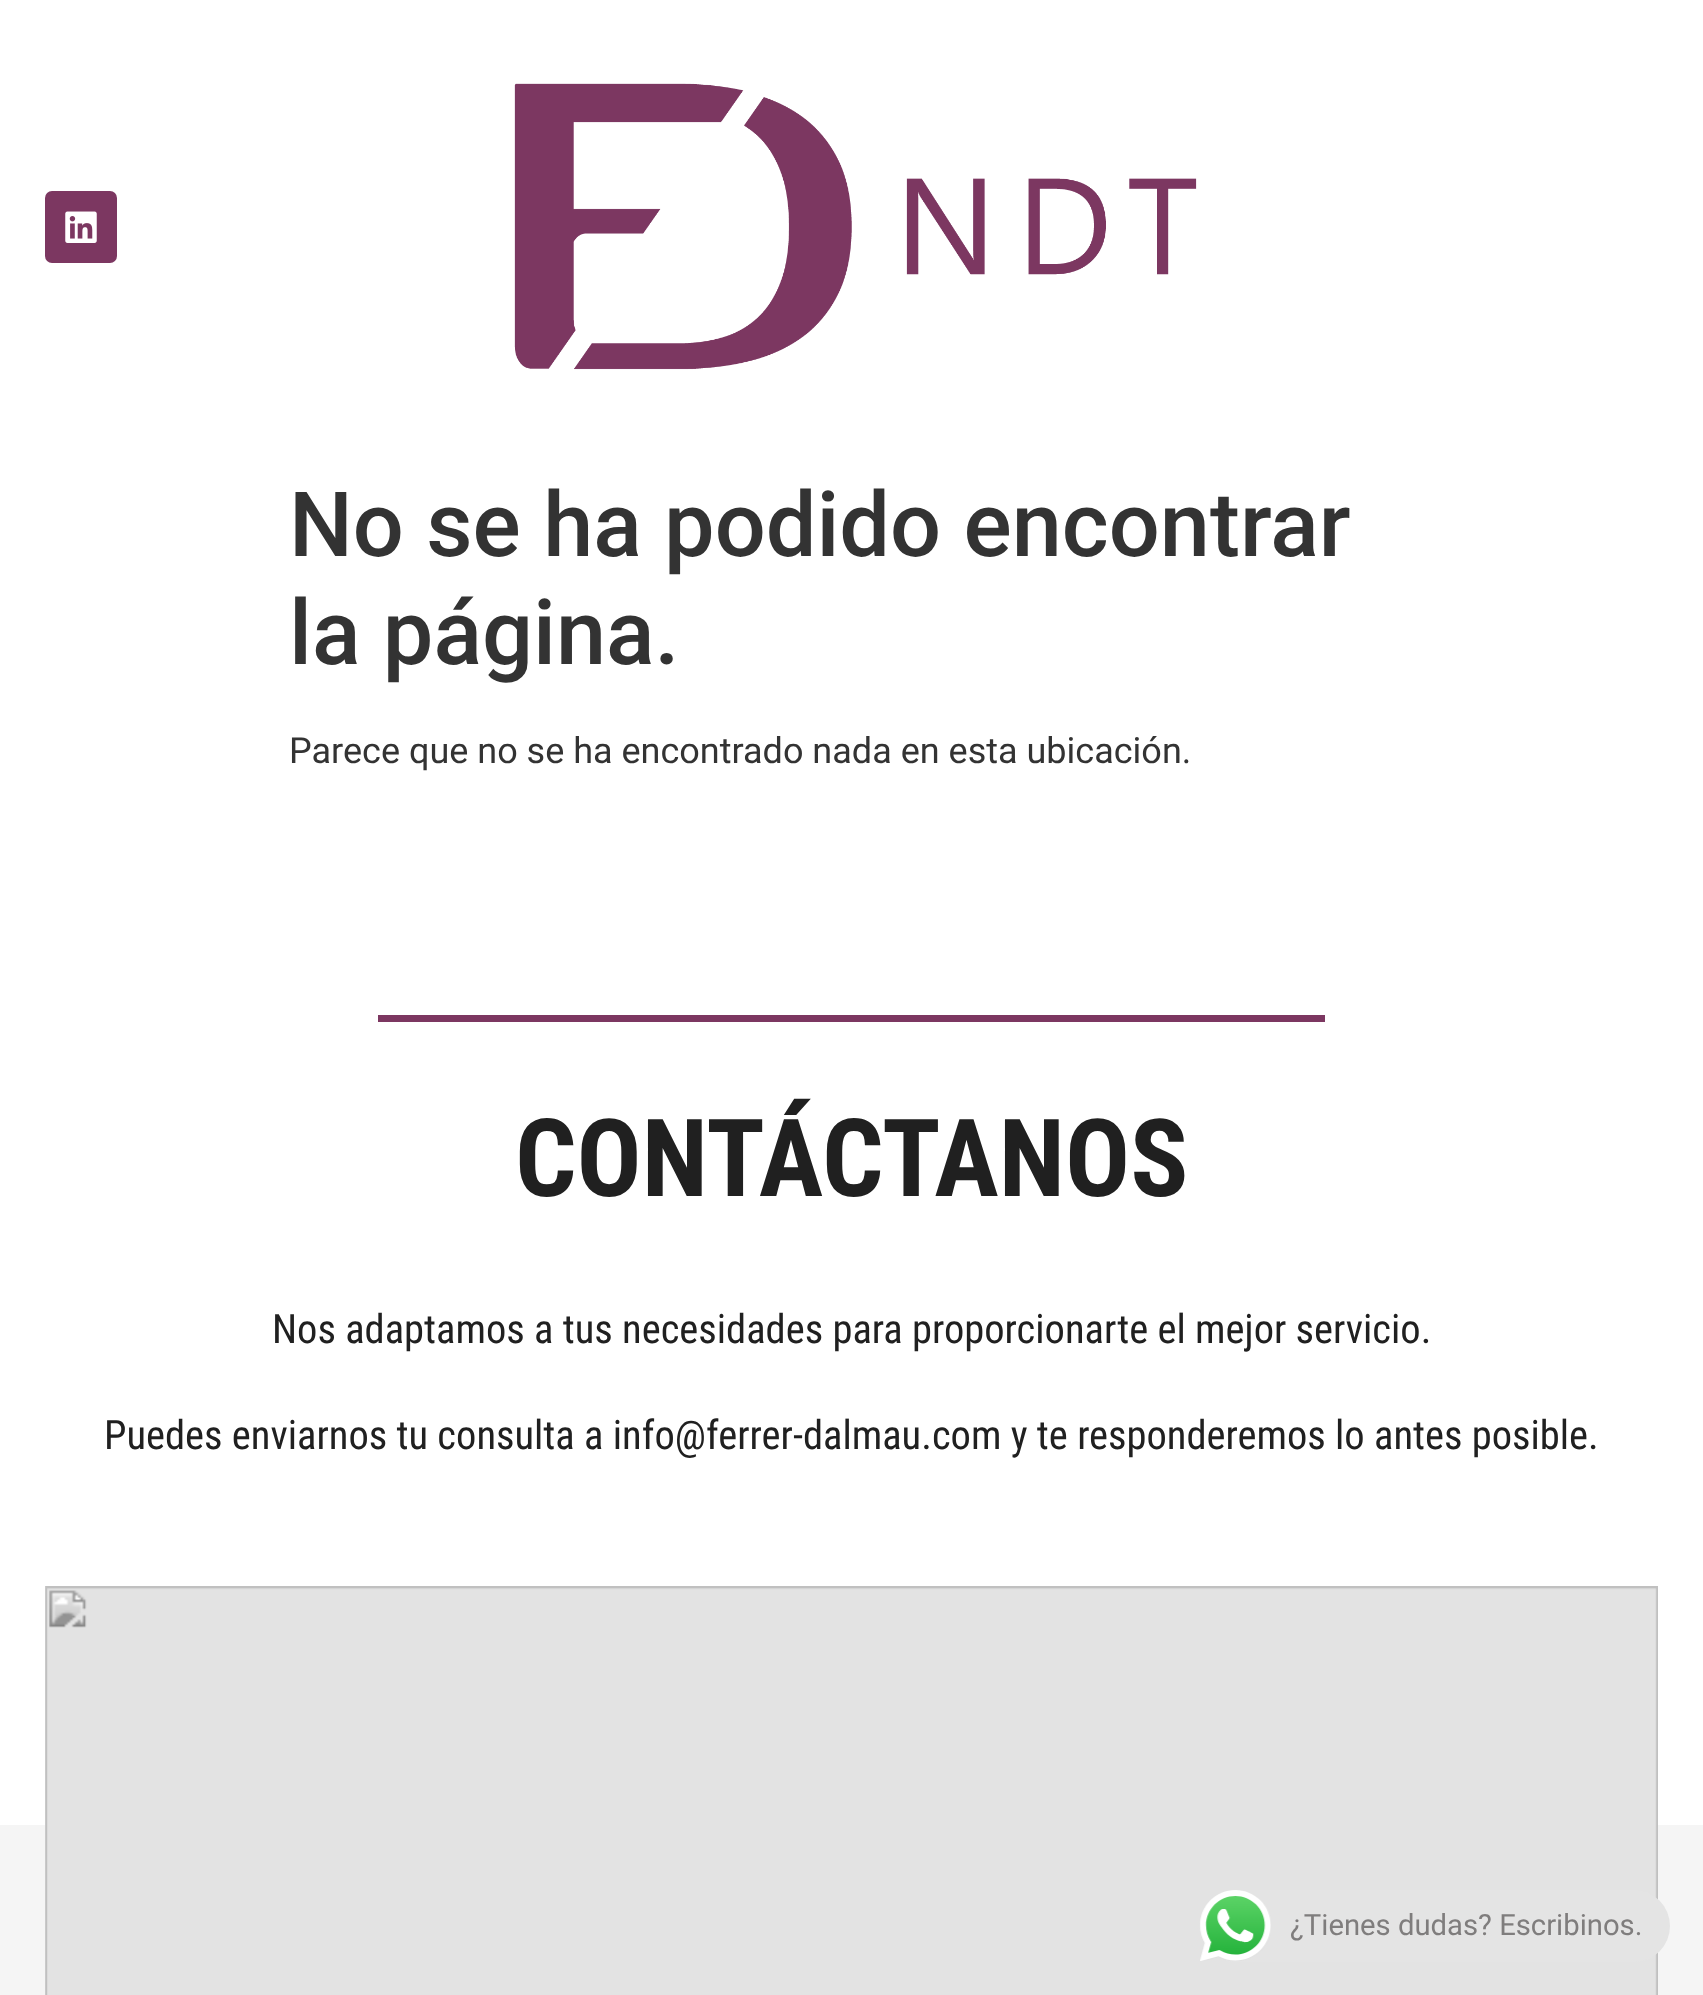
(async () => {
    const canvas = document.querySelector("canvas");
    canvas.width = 1703;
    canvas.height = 1995;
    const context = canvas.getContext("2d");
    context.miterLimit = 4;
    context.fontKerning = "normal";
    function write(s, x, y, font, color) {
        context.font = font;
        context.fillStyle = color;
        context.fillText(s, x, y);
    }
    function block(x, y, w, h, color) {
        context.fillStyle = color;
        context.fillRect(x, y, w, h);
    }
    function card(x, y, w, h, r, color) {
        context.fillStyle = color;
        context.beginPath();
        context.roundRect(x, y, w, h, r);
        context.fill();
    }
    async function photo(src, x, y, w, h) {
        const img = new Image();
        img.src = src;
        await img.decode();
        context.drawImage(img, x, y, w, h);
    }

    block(0, 0, 1703, 1995, "rgb(255, 255, 255)");
    card(45, 191, 72, 72, 7, "rgb(124, 55, 97)");
    await photo("media/1.png", 65, 211, 32, 32);
    await photo("media/2.png", 514, 83, 683, 287);
    write("No se ha podido encontrar", 289, 556, "500 90px Roboto", "rgb(51, 51, 51)");
    write("la página.", 289, 664, "500 90px Roboto", "rgb(51, 51, 51)");
    write("Parece que no se ha encontrado nada en esta ubicación.", 289, 763, "36px Roboto", "rgb(51, 51, 51)");
    block(378, 1015, 947, 7, "rgb(124, 55, 97)");
    write("CONTÁCTANOS", 515, 1196, "bold 108px Roboto Condensed", "rgb(32, 32, 32)");
    write("Nos adaptamos a tus necesidades para proporcionarte el mejor servicio.", 272, 1343, "40.5px Roboto Condensed", "rgb(32, 32, 32)");
    write("Puedes enviarnos tu consulta a info@ferrer-dalmau.com y te responderemos lo antes posible.", 104, 1449, "40.5px Roboto Condensed", "rgb(32, 32, 32)");
    block(0, 1825, 1703, 170, "rgb(245, 245, 245)");
    await photo("media/3.png", 45, 1586, 1613, 409);
    card(1199, 1890, 471, 72, 36, "rgb(228, 228, 228)");
    await photo("media/4.png", 1200, 1890, 71, 71);
    write("¿Tienes dudas? Escribinos.", 1290, 1935, "29.25px Roboto", "rgb(127, 125, 125)");
})();
